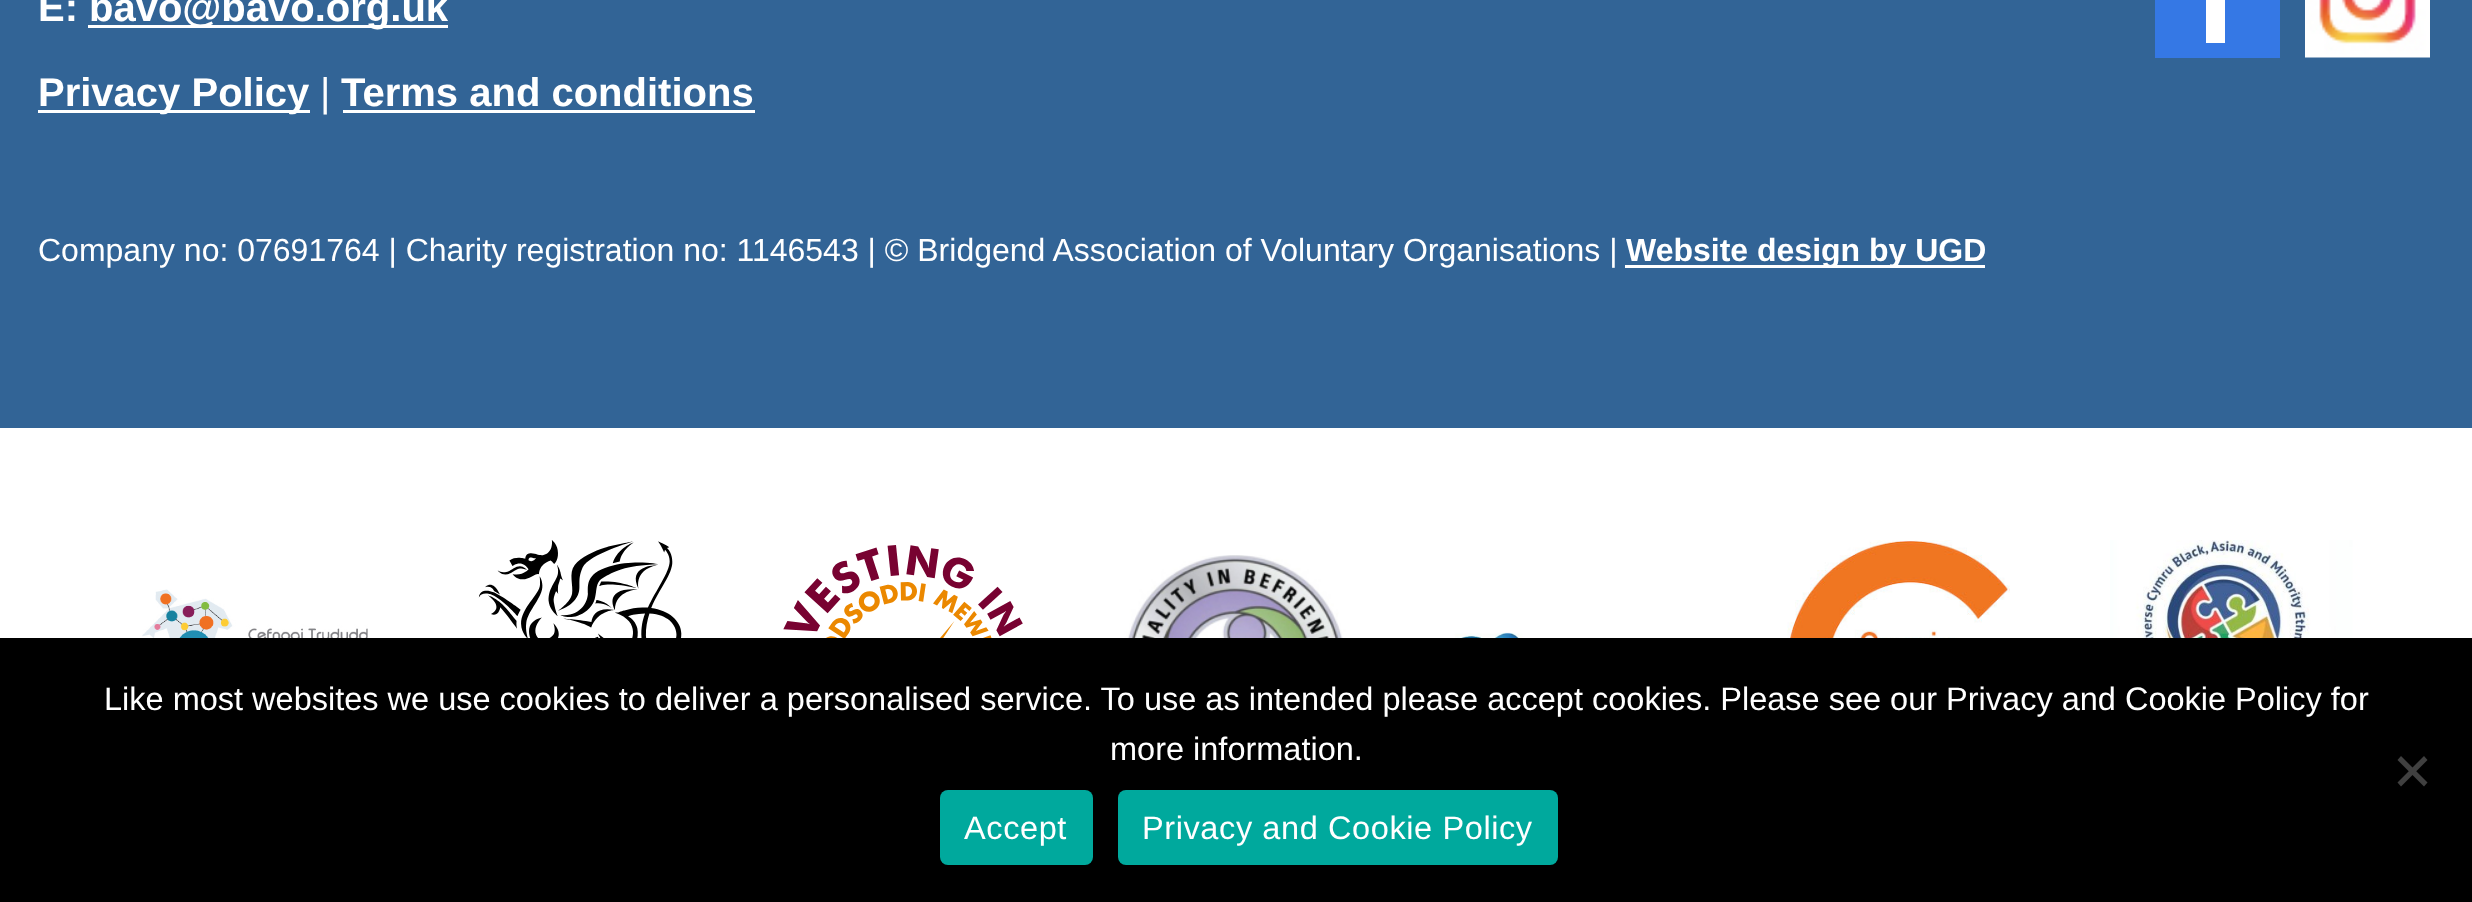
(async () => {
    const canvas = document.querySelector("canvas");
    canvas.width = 2472;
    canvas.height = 902;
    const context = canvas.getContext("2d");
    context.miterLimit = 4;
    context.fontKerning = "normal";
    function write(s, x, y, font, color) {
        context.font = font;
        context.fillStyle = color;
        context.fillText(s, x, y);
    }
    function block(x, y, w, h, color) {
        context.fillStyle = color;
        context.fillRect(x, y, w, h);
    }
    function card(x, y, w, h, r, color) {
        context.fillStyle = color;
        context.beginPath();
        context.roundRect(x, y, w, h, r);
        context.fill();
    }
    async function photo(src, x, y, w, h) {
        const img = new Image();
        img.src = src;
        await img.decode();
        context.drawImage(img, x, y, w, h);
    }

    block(0, 0, 2472, 902, "rgb(255, 255, 255)");
    block(0, 0, 2472, 428, "rgb(50, 100, 150)");
    write("E:", 38, 21, "bold 40px Liberation Sans", "rgb(255, 255, 255)");
    block(88, 25, 360, 3, "rgb(255, 255, 255)");
    write("bavo@bavo.org.uk", 89, 21, "bold 40px Liberation Sans", "rgb(255, 255, 255)");
    block(38, 110, 272, 3, "rgb(255, 255, 255)");
    write("Privacy Policy", 38, 106, "bold 40px Liberation Sans", "rgb(255, 255, 255)");
    write("|", 320, 106, "40px Liberation Sans", "rgb(255, 255, 255)");
    write("Terms and conditions", 341, 106, "bold 40px Liberation Sans", "rgb(255, 255, 255)");
    block(343, 110, 412, 3, "rgb(255, 255, 255)");
    block(2155, 0, 125, 58, "rgb(53, 120, 229)");
    context.fillStyle = "rgb(255, 255, 255)";
    context.beginPath();
    context.moveTo(2228, -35);
    context.lineTo(2243, -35);
    context.lineTo(2243, -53);
    context.lineTo(2228, -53);
    context.bezierCurveTo(2216, -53, 2206, -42, 2206, -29);
    context.lineTo(2206, -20);
    context.lineTo(2192, -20);
    context.lineTo(2192, -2);
    context.lineTo(2206, -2);
    context.lineTo(2206, 43);
    context.lineTo(2225, 43);
    context.lineTo(2225, -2);
    context.lineTo(2244, -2);
    context.lineTo(2244, -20);
    context.lineTo(2225, -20);
    context.bezierCurveTo(2225, -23, 2223, -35, 2228, -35);
    context.closePath();
    context.fill();
    await photo("media/1.png", 2305, 0, 125, 58);
    write("Company no: 07691764 | Charity registration no: 1146543 | © Bridgend Association of Voluntary Organisations |", 38, 261, "32px Liberation Sans", "rgb(255, 255, 255)");
    block(1625, 265, 360, 3, "rgb(255, 255, 255)");
    write("Website design by UGD", 1626, 261, "bold 32px Liberation Sans", "rgb(255, 255, 255)");
    await photo("media/2.png", 113, 589, 255, 49);
    await photo("media/3.png", 478, 540, 204, 98);
    await photo("media/4.png", 783, 545, 240, 93);
    await photo("media/5.png", 1124, 555, 223, 83);
    await photo("media/6.png", 1442, 632, 251, 6);
    await photo("media/7.png", 1787, 540, 223, 98);
    await photo("media/8.png", 2110, 540, 243, 98);
    block(0, 638, 2472, 264, "rgb(0, 0, 0)");
    write("Like most websites we use cookies to deliver a personalised service. To use as intended please accept cookies. Please see our Privacy and Cookie Policy for", 104, 710, "32.5px Liberation Sans", "rgb(255, 255, 255)");
    write("more information.", 1110, 760, "32.5px Liberation Sans", "rgb(255, 255, 255)");
    context.fillStyle = "rgb(64, 64, 64)";
    context.beginPath();
    context.moveTo(2424, 756);
    context.lineTo(2427.5, 760);
    context.lineTo(2401, 786.5);
    context.lineTo(2397.5, 782.5);
    context.closePath();
    context.fill();
    context.beginPath();
    context.moveTo(2397.5, 760);
    context.lineTo(2401, 756);
    context.lineTo(2427.5, 782.5);
    context.lineTo(2424, 786.5);
    context.closePath();
    context.fill();
    card(940, 790, 153, 75, 8, "rgb(0, 169, 157)");
    context.letterSpacing = "0.6px";
    write("Accept", 964, 839, "32.5px Liberation Sans", "rgb(255, 255, 255)");
    card(1118, 790, 440, 75, 8, "rgb(0, 169, 157)");
    write("Privacy and Cookie Policy", 1142, 839, "32.5px Liberation Sans", "rgb(255, 255, 255)");
})();
